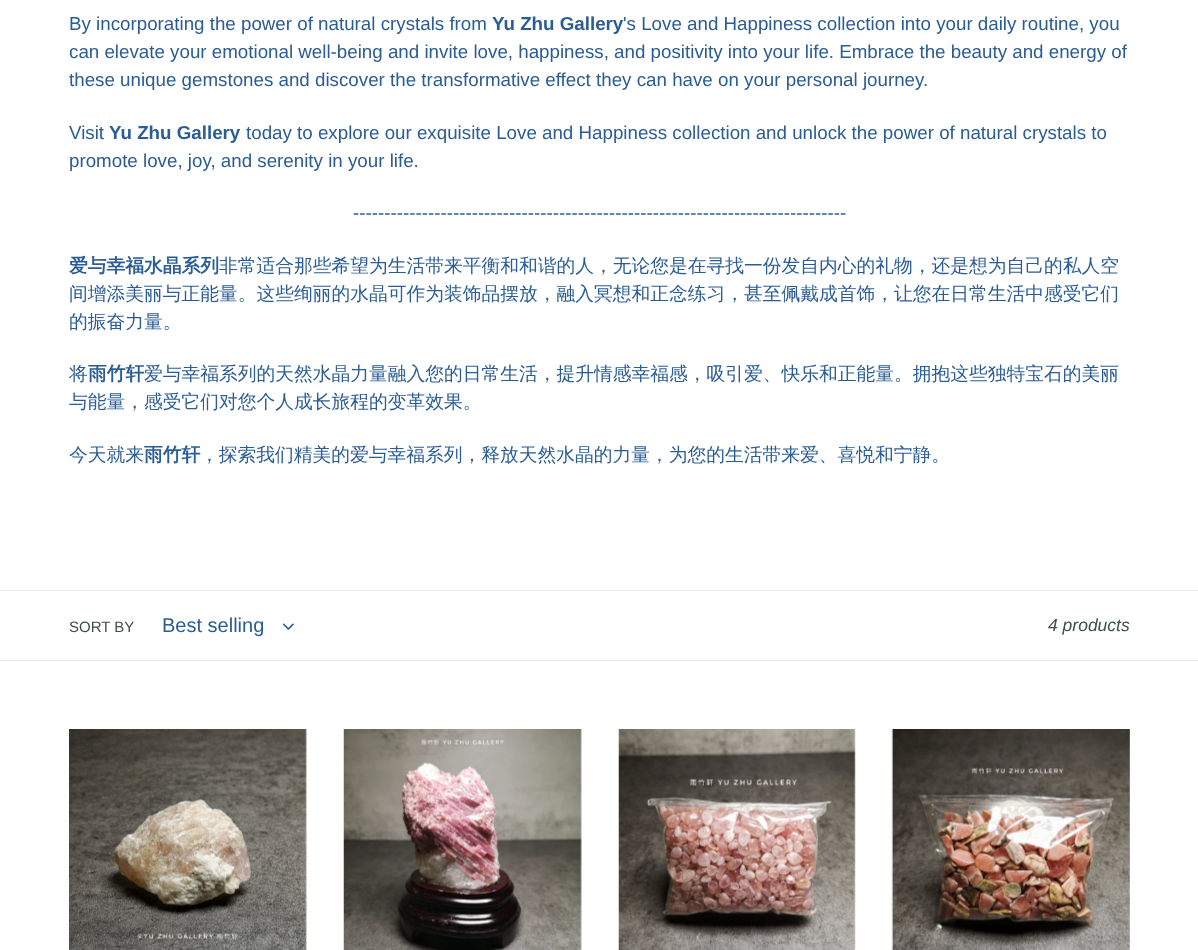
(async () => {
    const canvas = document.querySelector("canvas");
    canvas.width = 1198;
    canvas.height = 950;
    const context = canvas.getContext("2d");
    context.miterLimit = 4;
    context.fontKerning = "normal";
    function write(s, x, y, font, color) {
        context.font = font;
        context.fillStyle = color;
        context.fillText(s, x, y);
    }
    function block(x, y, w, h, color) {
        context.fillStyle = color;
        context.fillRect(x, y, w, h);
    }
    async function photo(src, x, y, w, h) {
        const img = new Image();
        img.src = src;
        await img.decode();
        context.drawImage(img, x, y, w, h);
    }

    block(0, 0, 1198, 950, "rgb(255, 255, 255)");
    write("By incorporating the power of natural crystals from", 69, 30, "18.75px Liberation Sans", "rgb(42, 92, 149)");
    write("Yu Zhu Gallery", 492, 30, "bold 18.75px Liberation Sans", "rgb(42, 92, 149)");
    write("'s Love and Happiness collection into your daily routine, you", 623, 30, "18.75px Liberation Sans", "rgb(42, 92, 149)");
    write("can elevate your emotional well-being and invite love, happiness, and positivity into your life. Embrace the beauty and energy of", 69, 58, "18.75px Liberation Sans", "rgb(42, 92, 149)");
    write("these unique gemstones and discover the transformative effect they can have on your personal journey.", 69, 86, "18.75px Liberation Sans", "rgb(42, 92, 149)");
    write("Visit", 69, 139, "18.75px Liberation Sans", "rgb(42, 92, 149)");
    write("Yu Zhu Gallery", 109, 139, "bold 18.75px Liberation Sans", "rgb(42, 92, 149)");
    write("today to explore our exquisite Love and Happiness collection and unlock the power of natural crystals to", 246, 139, "18.75px Liberation Sans", "rgb(42, 92, 149)");
    write("promote love, joy, and serenity in your life.", 69, 167, "18.75px Liberation Sans", "rgb(42, 92, 149)");
    write("-------------------------------------------------------------------------------", 353, 219, "18.75px Liberation Sans", "rgb(42, 92, 149)");
    write("爱与幸福水晶系列", 69, 272, "bold 18.75px WenQuanYi Zen Hei", "rgb(42, 92, 149)");
    write("非常适合那些希望为生活带来平衡和和谐的人，无论您是在寻找一份发自内心的礼物，还是想为自己的私人空", 219, 272, "500 18.75px WenQuanYi Zen Hei", "rgb(42, 92, 149)");
    write("间增添美丽与正能量。这些绚丽的水晶可作为装饰品摆放，融入冥想和正念练习，甚至佩戴成首饰，让您在日常生活中感受它们", 69, 300, "500 18.75px WenQuanYi Zen Hei", "rgb(42, 92, 149)");
    write("的振奋力量。", 69, 328, "500 18.75px WenQuanYi Zen Hei", "rgb(42, 92, 149)");
    write("将", 69, 380, "500 18.75px WenQuanYi Zen Hei", "rgb(42, 92, 149)");
    write("雨竹轩", 88, 380, "bold 18.75px WenQuanYi Zen Hei", "rgb(42, 92, 149)");
    write("爱与幸福系列的天然水晶力量融入您的日常生活，提升情感幸福感，吸引爱、快乐和正能量。拥抱这些独特宝石的美丽", 144, 380, "500 18.75px WenQuanYi Zen Hei", "rgb(42, 92, 149)");
    write("与能量，感受它们对您个人成长旅程的变革效果。", 69, 408, "500 18.75px WenQuanYi Zen Hei", "rgb(42, 92, 149)");
    write("今天就来", 69, 461, "500 18.75px WenQuanYi Zen Hei", "rgb(42, 92, 149)");
    write("雨竹轩", 144, 461, "bold 18.75px WenQuanYi Zen Hei", "rgb(42, 92, 149)");
    write("，探索我们精美的爱与幸福系列，释放天然水晶的力量，为您的生活带来爱、喜悦和宁静。", 200, 461, "500 18.75px WenQuanYi Zen Hei", "rgb(42, 92, 149)");
    block(0, 590, 1198, 1, "rgb(235, 235, 235)");
    block(0, 660, 1198, 1, "rgb(235, 235, 235)");
    write("SORT BY", 69, 632, "15px Liberation Sans", "rgb(61, 80, 76)");
    write("Best selling", 162, 632, "20px Liberation Sans", "rgb(42, 92, 149)");
    await photo("media/1.png", 283, 623, 11, 7);
    write("4 products", 1048, 631, "italic 17.5px Liberation Sans", "rgb(61, 80, 76)");
    await photo("media/2.png", 69, 729, 238, 221);
    await photo("media/3.png", 343, 729, 239, 221);
    await photo("media/4.png", 618, 729, 238, 221);
    await photo("media/5.png", 891, 729, 239, 221);
})();
